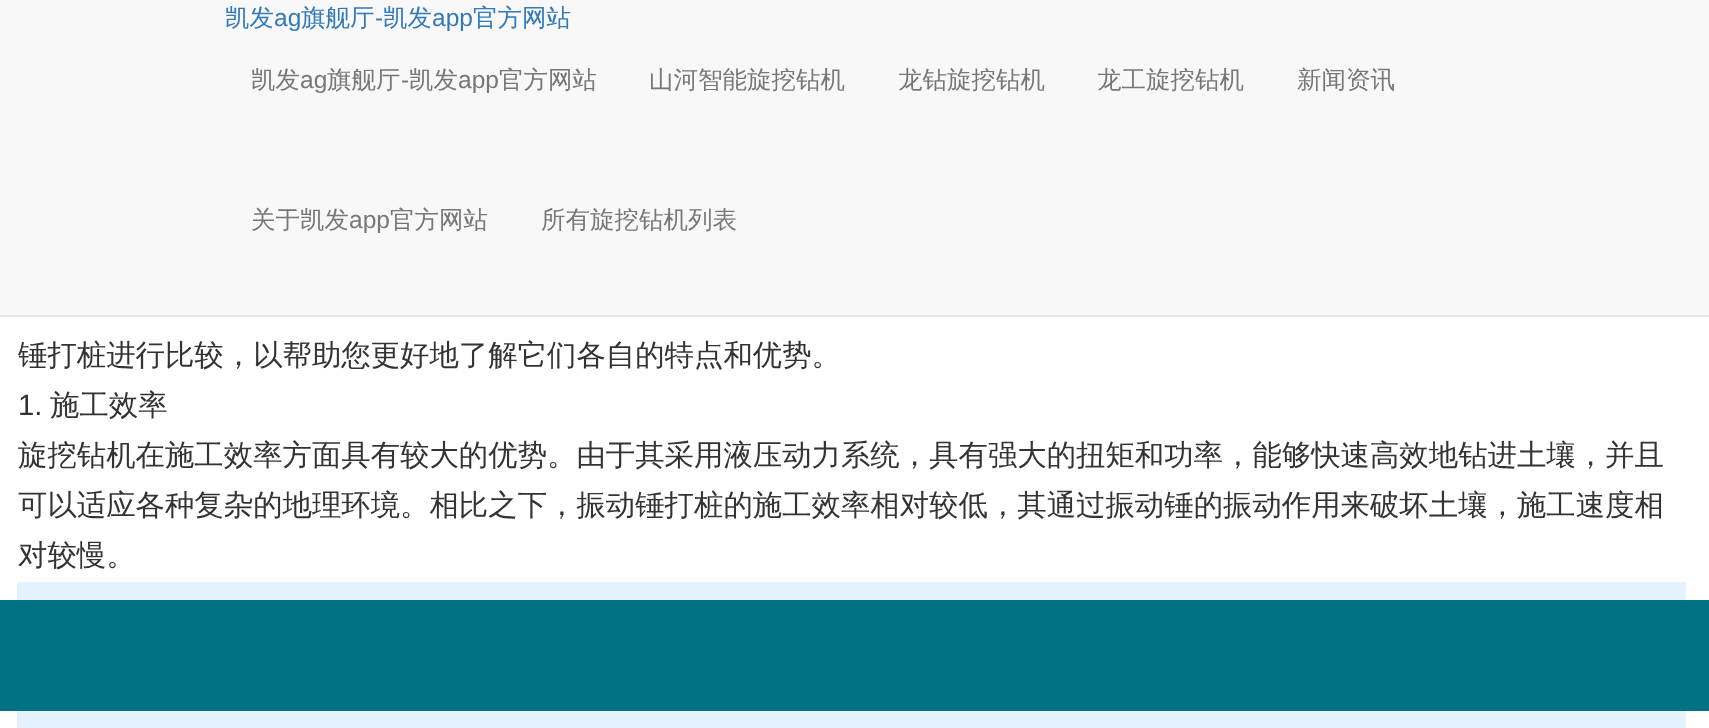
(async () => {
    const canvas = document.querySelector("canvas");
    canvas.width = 1709;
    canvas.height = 728;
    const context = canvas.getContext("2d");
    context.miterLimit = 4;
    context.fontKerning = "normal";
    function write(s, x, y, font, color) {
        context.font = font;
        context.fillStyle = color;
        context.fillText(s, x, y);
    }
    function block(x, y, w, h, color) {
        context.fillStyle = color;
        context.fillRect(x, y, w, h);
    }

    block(0, 0, 1709, 728, "rgb(255, 255, 255)");
    block(0, 0, 1709, 315, "rgb(248, 248, 248)");
    block(0, 315, 1709, 2, "rgb(231, 231, 231)");
    write("凯发", 225, 26, "500 24.5px WenQuanYi Zen Hei", "rgb(51, 122, 183)");
    write("ag", 274, 26, "24.5px Liberation Sans", "rgb(51, 122, 183)");
    write("旗舰厅", 301, 26, "500 24.5px WenQuanYi Zen Hei", "rgb(51, 122, 183)");
    write("-", 375, 26, "24.5px Liberation Sans", "rgb(51, 122, 183)");
    write("凯发", 383, 26, "500 24.5px WenQuanYi Zen Hei", "rgb(51, 122, 183)");
    write("app", 432, 26, "24.5px Liberation Sans", "rgb(51, 122, 183)");
    write("官方网站", 473, 26, "500 24.5px WenQuanYi Zen Hei", "rgb(51, 122, 183)");
    write("凯发", 251, 88, "500 24.5px WenQuanYi Zen Hei", "rgb(119, 119, 119)");
    write("ag", 300, 88, "24.5px Liberation Sans", "rgb(119, 119, 119)");
    write("旗舰厅", 327, 88, "500 24.5px WenQuanYi Zen Hei", "rgb(119, 119, 119)");
    write("-", 401, 88, "24.5px Liberation Sans", "rgb(119, 119, 119)");
    write("凯发", 409, 88, "500 24.5px WenQuanYi Zen Hei", "rgb(119, 119, 119)");
    write("app", 458, 88, "24.5px Liberation Sans", "rgb(119, 119, 119)");
    write("官方网站", 499, 88, "500 24.5px WenQuanYi Zen Hei", "rgb(119, 119, 119)");
    write("山河智能旋挖钻机", 649, 88, "500 24.5px WenQuanYi Zen Hei", "rgb(119, 119, 119)");
    write("龙钻旋挖钻机", 898, 88, "500 24.5px WenQuanYi Zen Hei", "rgb(119, 119, 119)");
    write("龙工旋挖钻机", 1097, 88, "500 24.5px WenQuanYi Zen Hei", "rgb(119, 119, 119)");
    write("新闻资讯", 1297, 88, "500 24.5px WenQuanYi Zen Hei", "rgb(119, 119, 119)");
    write("关于凯发", 251, 228, "500 24.5px WenQuanYi Zen Hei", "rgb(119, 119, 119)");
    write("app", 349, 228, "24.5px Liberation Sans", "rgb(119, 119, 119)");
    write("官方网站", 390, 228, "500 24.5px WenQuanYi Zen Hei", "rgb(119, 119, 119)");
    write("所有旋挖钻机列表", 541, 228, "500 24.5px WenQuanYi Zen Hei", "rgb(119, 119, 119)");
    write("锤打桩进行比较，以帮助您更好地了解它们各自的特点和优势。", 18, 365, "500 29.4px WenQuanYi Zen Hei", "rgb(51, 51, 51)");
    write("1.", 18, 415, "29.4px Liberation Sans", "rgb(51, 51, 51)");
    write("施工效率", 50, 415, "500 29.4px WenQuanYi Zen Hei", "rgb(51, 51, 51)");
    write("旋挖钻机在施工效率方面具有较大的优势。由于其采用液压动力系统，具有强大的扭矩和功率，能够快速高效地钻进土壤，并且", 18, 465, "500 29.4px WenQuanYi Zen Hei", "rgb(51, 51, 51)");
    write("可以适应各种复杂的地理环境。相比之下，振动锤打桩的施工效率相对较低，其通过振动锤的振动作用来破坏土壤，施工速度相", 18, 515, "500 29.4px WenQuanYi Zen Hei", "rgb(51, 51, 51)");
    write("对较慢。", 18, 565, "500 29.4px WenQuanYi Zen Hei", "rgb(51, 51, 51)");
    block(17, 582, 1669, 146, "rgb(227, 242, 254)");
    block(0, 600, 1709, 111, "rgb(1, 114, 132)");
})();
